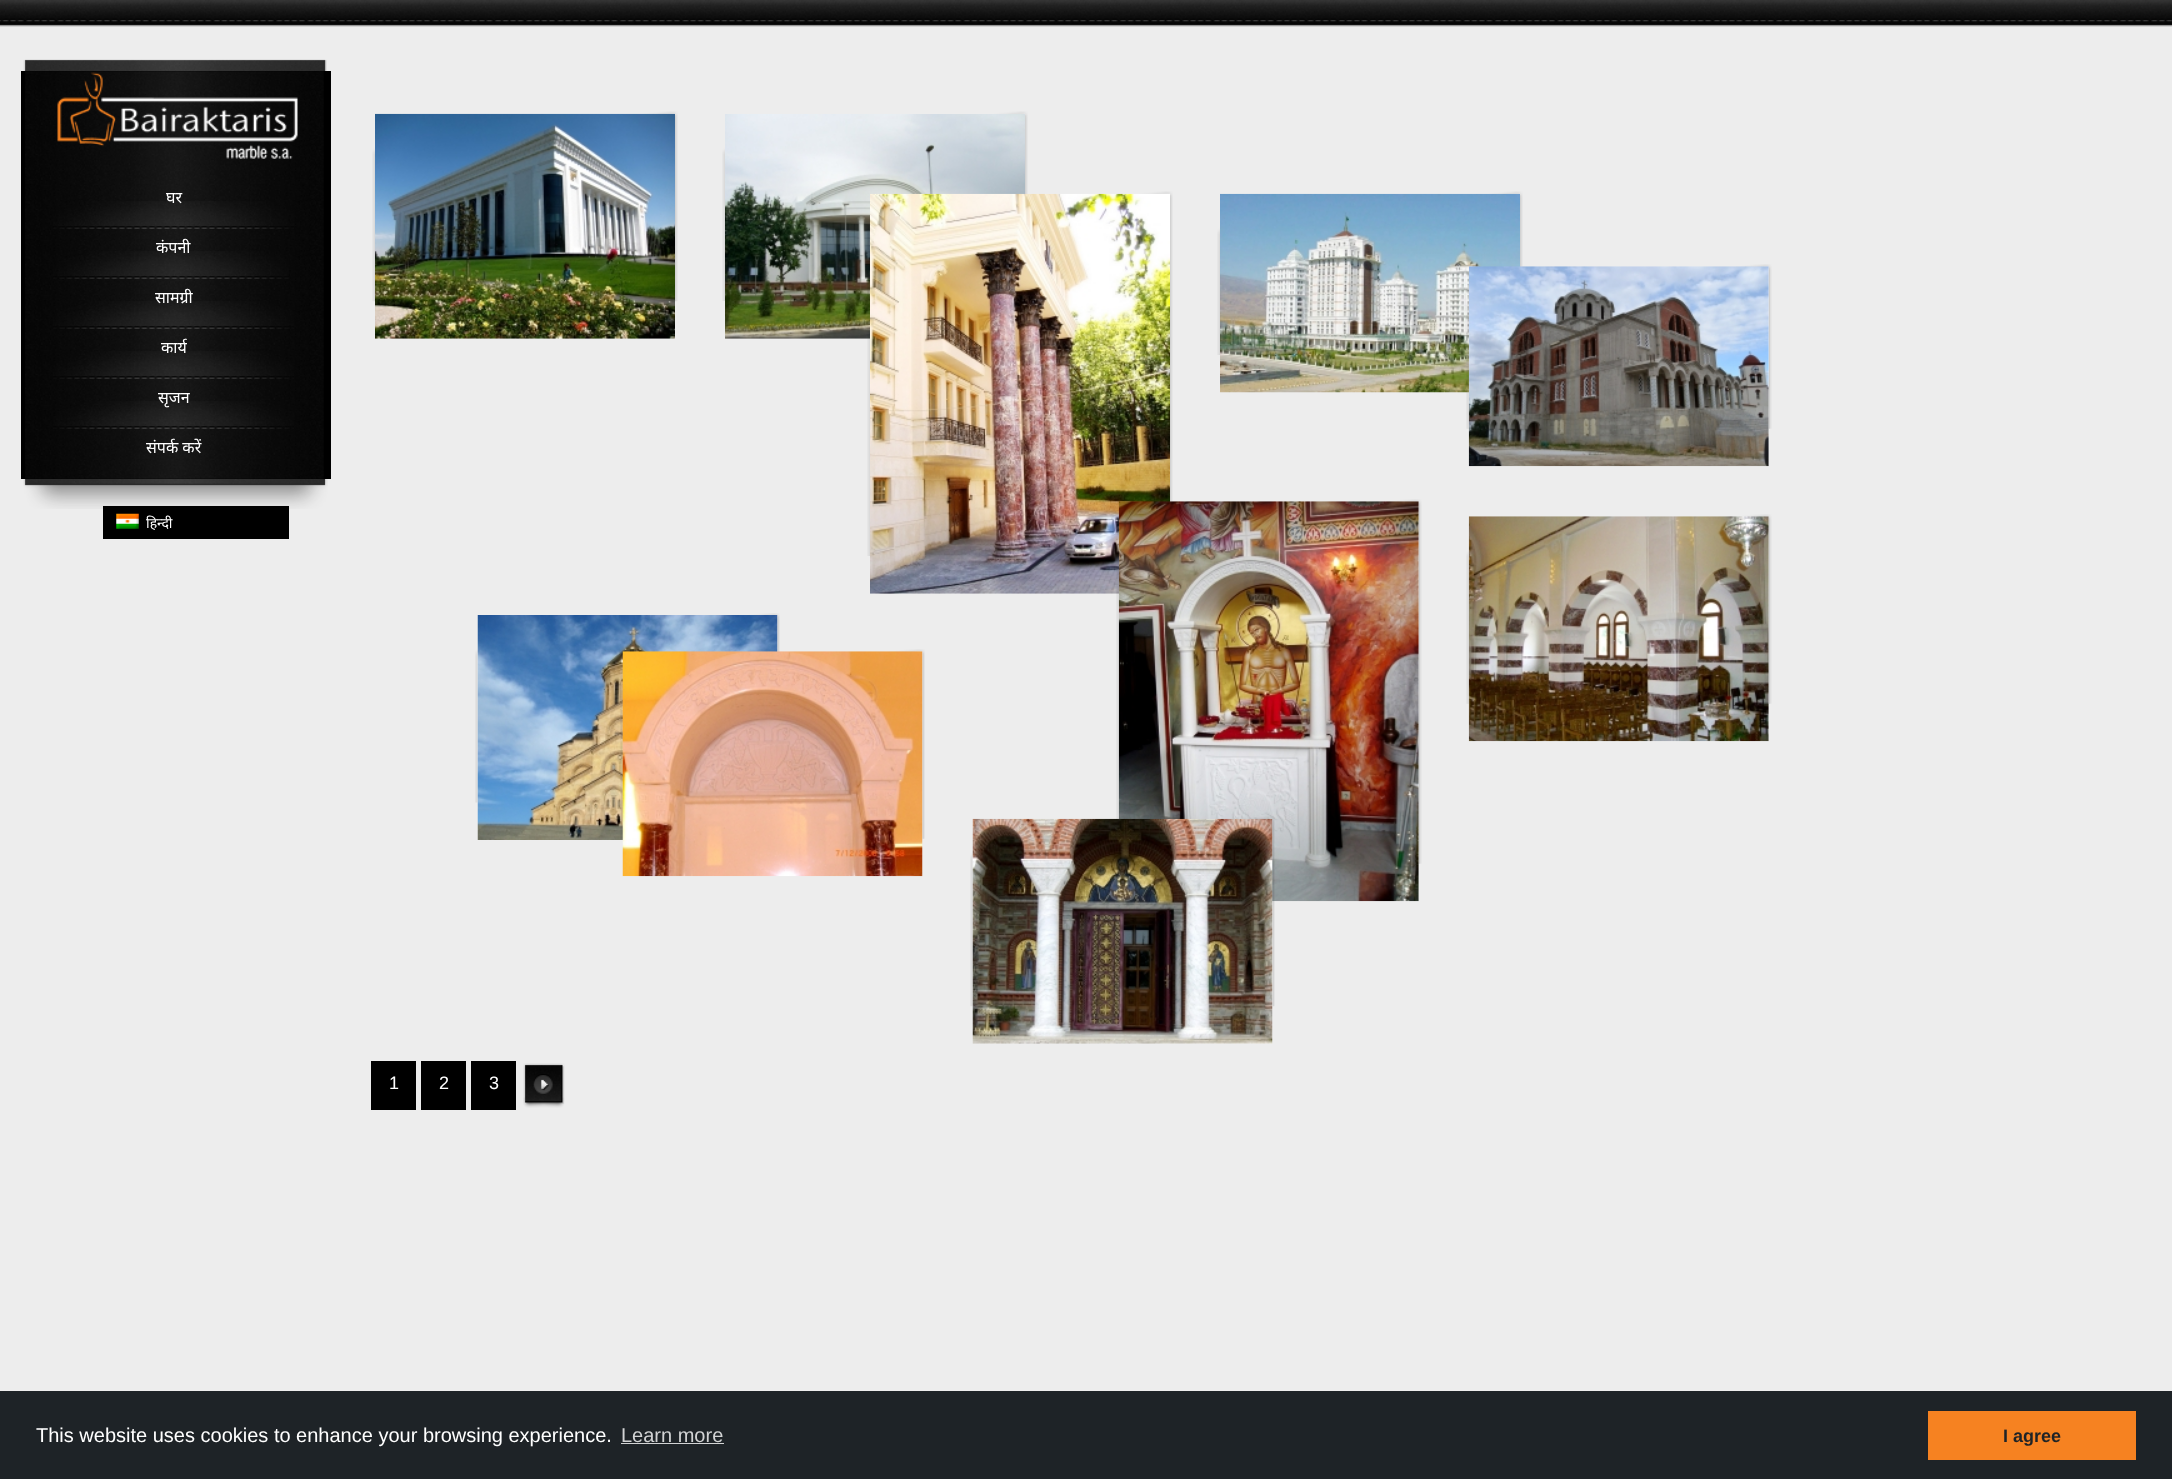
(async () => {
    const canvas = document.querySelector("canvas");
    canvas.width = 2172;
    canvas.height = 1479;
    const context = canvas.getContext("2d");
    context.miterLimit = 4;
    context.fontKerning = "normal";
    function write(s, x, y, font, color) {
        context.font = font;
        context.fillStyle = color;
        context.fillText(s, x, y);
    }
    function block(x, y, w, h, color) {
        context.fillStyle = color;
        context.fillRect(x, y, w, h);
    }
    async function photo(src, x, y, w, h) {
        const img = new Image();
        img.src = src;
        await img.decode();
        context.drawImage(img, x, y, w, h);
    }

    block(0, 0, 2172, 1479, "rgb(237, 237, 237)");
    await photo("media/1.png", 0, 0, 2172, 27);
    await photo("media/2.png", 23, 59, 304, 12);
    block(21, 71, 310, 408, "rgb(0, 0, 0)");
    await photo("media/3.png", 25, 71, 299, 408);
    await photo("media/4.png", 57, 72, 241, 87);
    await photo("media/5.png", 53, 201, 241, 28);
    write("घर", 166, 203, "16px Noto Sans", "rgb(255, 255, 255)");
    await photo("media/6.png", 53, 251, 236, 28);
    write("कंपनी", 156, 253, "16px Noto Sans", "rgb(255, 255, 255)");
    await photo("media/7.png", 53, 301, 241, 28);
    write("सामग्री", 155, 303, "16px Noto Sans", "rgb(255, 255, 255)");
    await photo("media/8.png", 53, 351, 241, 28);
    write("कार्य", 161, 353, "16px Noto Sans", "rgb(255, 255, 255)");
    await photo("media/9.png", 53, 401, 241, 28);
    write("सृजन", 158, 403, "16px Noto Sans", "rgb(255, 255, 255)");
    write("संपर्क करें", 146, 453, "16px Noto Sans", "rgb(255, 255, 255)");
    await photo("media/10.png", 23, 479, 305, 30);
    block(103, 506, 186, 33, "rgb(0, 0, 0)");
    await photo("media/11.png", 116, 513, 23, 16);
    write("हिन्दी", 146, 528, "14px Noto Sans", "rgb(255, 255, 255)");
    await photo("media/12.png", 372, 111, 306, 191);
    await photo("media/13.png", 375, 113, 300, 226);
    await photo("media/14.png", 722, 111, 306, 190);
    await photo("media/15.png", 725, 114, 300, 225);
    await photo("media/16.png", 867, 191, 306, 365);
    await photo("media/17.png", 870, 193, 300, 401);
    await photo("media/18.png", 1217, 191, 306, 164);
    await photo("media/19.png", 1220, 193, 300, 200);
    await photo("media/20.png", 1466, 264, 306, 165);
    await photo("media/21.png", 1468, 266, 301, 201);
    await photo("media/22.png", 475, 613, 305, 190);
    await photo("media/23.png", 477, 615, 301, 225);
    await photo("media/24.png", 1116, 499, 306, 365);
    await photo("media/25.png", 1118, 501, 301, 401);
    await photo("media/26.png", 1466, 514, 306, 190);
    await photo("media/27.png", 1468, 516, 301, 226);
    await photo("media/28.png", 620, 649, 305, 190);
    await photo("media/29.png", 622, 651, 301, 226);
    await photo("media/30.png", 970, 816, 305, 191);
    await photo("media/31.png", 972, 818, 301, 226);
    block(371, 1061, 45, 49, "rgb(0, 0, 0)");
    write("1", 389, 1089, "18px Liberation Sans", "rgb(255, 255, 255)");
    block(421, 1061, 45, 49, "rgb(0, 0, 0)");
    write("2", 439, 1089, "18px Liberation Sans", "rgb(255, 255, 255)");
    block(471, 1061, 45, 49, "rgb(0, 0, 0)");
    write("3", 489, 1089, "18px Liberation Sans", "rgb(255, 255, 255)");
    await photo("media/32.png", 523, 1063, 42, 45);
    await photo("media/33.png", 533, 1074, 20, 20);
    block(0, 1391, 2172, 88, "rgb(30, 35, 39)");
    write("This website uses cookies to enhance your browsing experience.", 36, 1442, "20px Liberation Sans", "rgb(255, 255, 255)");
    write("Learn more", 621, 1442, "20px Liberation Sans", "rgb(210, 211, 212)");
    block(621, 1443, 103, 1, "rgb(210, 211, 212)");
    block(1928, 1411, 208, 49, "rgb(246, 130, 33)");
    write("I agree", 2003, 1442, "bold 18px Liberation Sans", "rgb(30, 35, 39)");
})();
